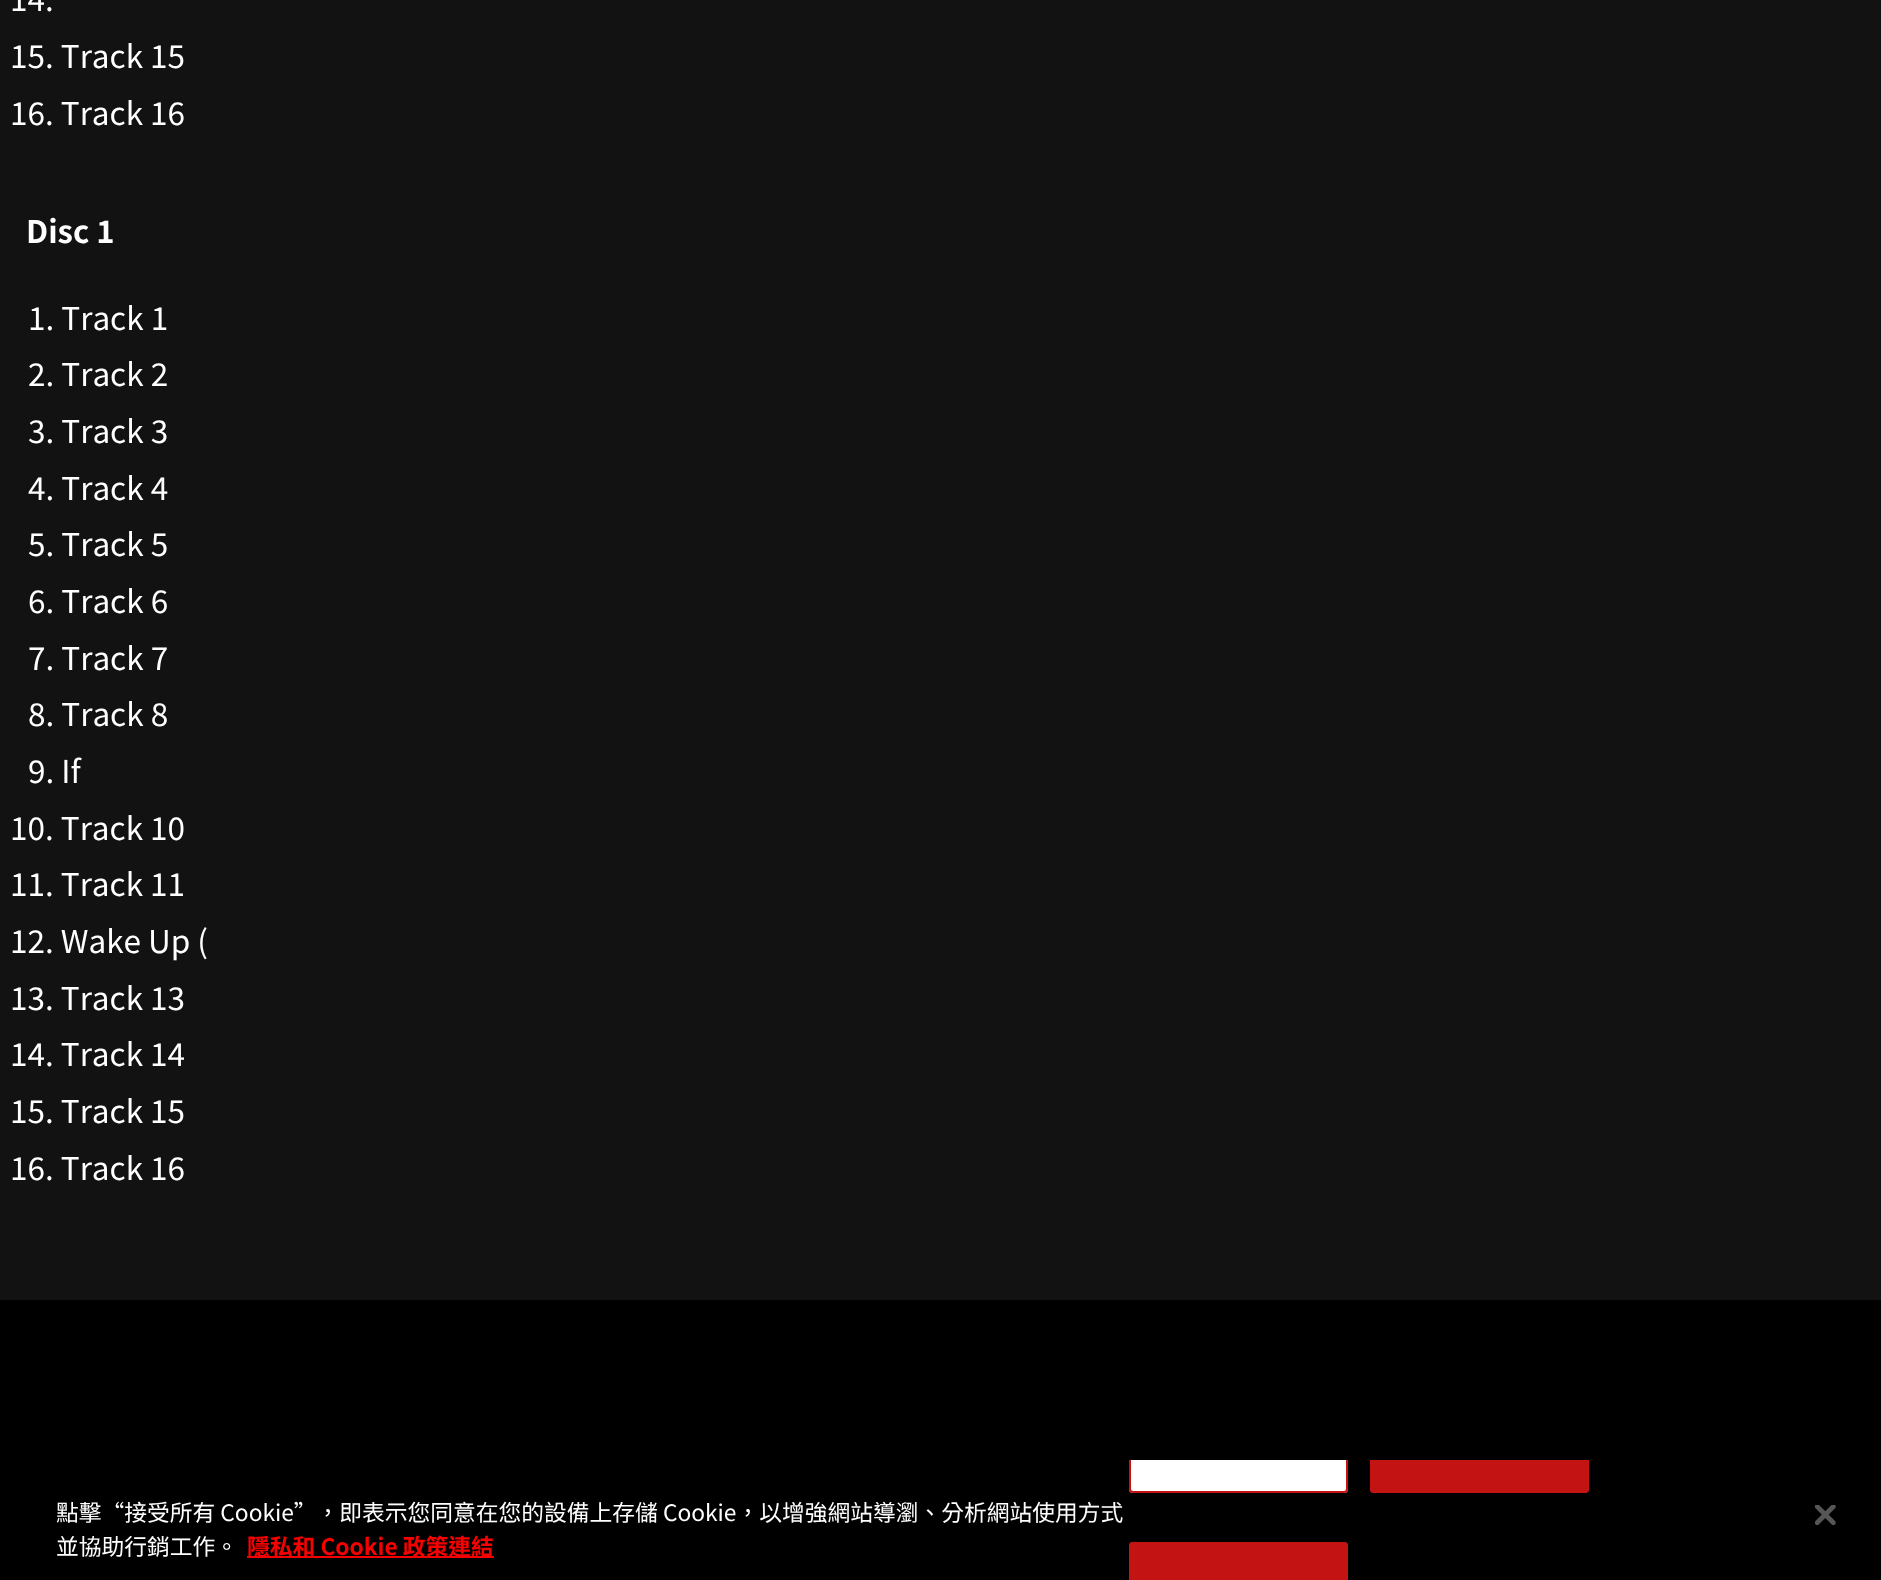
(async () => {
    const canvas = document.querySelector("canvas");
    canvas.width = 1881;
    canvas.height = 1580;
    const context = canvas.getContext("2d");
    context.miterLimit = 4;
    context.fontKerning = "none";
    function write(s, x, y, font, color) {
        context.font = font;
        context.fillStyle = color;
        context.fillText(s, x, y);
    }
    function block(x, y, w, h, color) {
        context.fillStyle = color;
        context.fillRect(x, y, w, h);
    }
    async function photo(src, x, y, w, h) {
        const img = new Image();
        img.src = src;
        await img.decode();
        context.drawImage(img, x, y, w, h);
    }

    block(0, 0, 1881, 1580, "rgb(18, 18, 18)");
    write("14.", 10, 11, "31.5px Noto Sans TC", "rgb(255, 255, 255)");
    write("15. Track 15", 10, 68, "31.5px Noto Sans TC", "rgb(255, 255, 255)");
    write("16. Track 16", 10, 125, "31.5px Noto Sans TC", "rgb(255, 255, 255)");
    write("Disc 1", 26, 243, "bold 31px Noto Sans TC", "rgb(255, 255, 255)");
    write("1. Track 1", 28, 330, "31.5px Noto Sans TC", "rgb(255, 255, 255)");
    write("2. Track 2", 28, 386, "31.5px Noto Sans TC", "rgb(255, 255, 255)");
    write("3. Track 3", 28, 443, "31.5px Noto Sans TC", "rgb(255, 255, 255)");
    write("4. Track 4", 28, 500, "31.5px Noto Sans TC", "rgb(255, 255, 255)");
    write("5. Track 5", 28, 556, "31.5px Noto Sans TC", "rgb(255, 255, 255)");
    write("6. Track 6", 28, 613, "31.5px Noto Sans TC", "rgb(255, 255, 255)");
    write("7. Track 7", 28, 670, "31.5px Noto Sans TC", "rgb(255, 255, 255)");
    write("8. Track 8", 28, 726, "31.5px Noto Sans TC", "rgb(255, 255, 255)");
    write("9. If", 28, 783, "31.5px Noto Sans TC", "rgb(255, 255, 255)");
    write("10. Track 10", 10, 840, "31.5px Noto Sans TC", "rgb(255, 255, 255)");
    write("11. Track 11", 10, 896, "31.5px Noto Sans TC", "rgb(255, 255, 255)");
    write("12. Wake Up (", 10, 953, "31.5px Noto Sans TC", "rgb(255, 255, 255)");
    write("13. Track 13", 10, 1010, "31.5px Noto Sans TC", "rgb(255, 255, 255)");
    write("14. Track 14", 10, 1066, "31.5px Noto Sans TC", "rgb(255, 255, 255)");
    write("15. Track 15", 10, 1123, "31.5px Noto Sans TC", "rgb(255, 255, 255)");
    write("16. Track 16", 10, 1180, "31.5px Noto Sans TC", "rgb(255, 255, 255)");
    block(0, 1300, 1881, 280, "rgb(0, 0, 0)");
    write("點擊“接受所有 Cookie”，即表示您同意在您的設備上存儲 Cookie，以增強網站導瀏、分析網站使用方式", 56, 1521, "22.75px Noto Sans TC", "rgb(255, 255, 255)");
    write("並協助行銷工作。", 56, 1555, "22.75px Noto Sans TC", "rgb(255, 255, 255)");
    block(247, 1556, 247, 2, "rgb(249, 0, 0)");
    write("隱私和 Cookie 政策連結", 247, 1555, "bold 22.75px Noto Sans TC", "rgb(249, 0, 0)");
    context.fillStyle = "rgb(255, 255, 255)";
    context.beginPath();
    context.roundRect(1129, 1460, 219, 33, [0, 0, 4, 4]);
    context.fill();
    context.save();
    context.beginPath();
    context.rect(0, 1460, 1881, 120);
    context.clip();
    context.beginPath();
    context.roundRect(1130, 1420, 217, 72, 3);
    context.strokeStyle = "rgb(195, 19, 19)";
    context.lineWidth = 2;
    context.stroke();
    context.restore();
    context.fillStyle = "rgb(195, 19, 19)";
    context.beginPath();
    context.roundRect(1370, 1460, 219, 33, [0, 0, 4, 4]);
    context.fill();
    context.save();
    context.beginPath();
    context.rect(0, 1460, 1881, 120);
    context.clip();
    context.beginPath();
    context.roundRect(1371, 1420, 217, 72, 3);
    context.strokeStyle = "rgb(195, 19, 19)";
    context.lineWidth = 2;
    context.stroke();
    context.restore();
    context.beginPath();
    context.roundRect(1129, 1542, 219, 38, [4, 4, 0, 0]);
    context.fill();
    context.beginPath();
    context.roundRect(1130, 1543, 217, 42, 3);
    context.strokeStyle = "rgb(195, 19, 19)";
    context.lineWidth = 2;
    context.stroke();
    await photo("media/1.png", 1815, 1505, 21, 21);
})();
